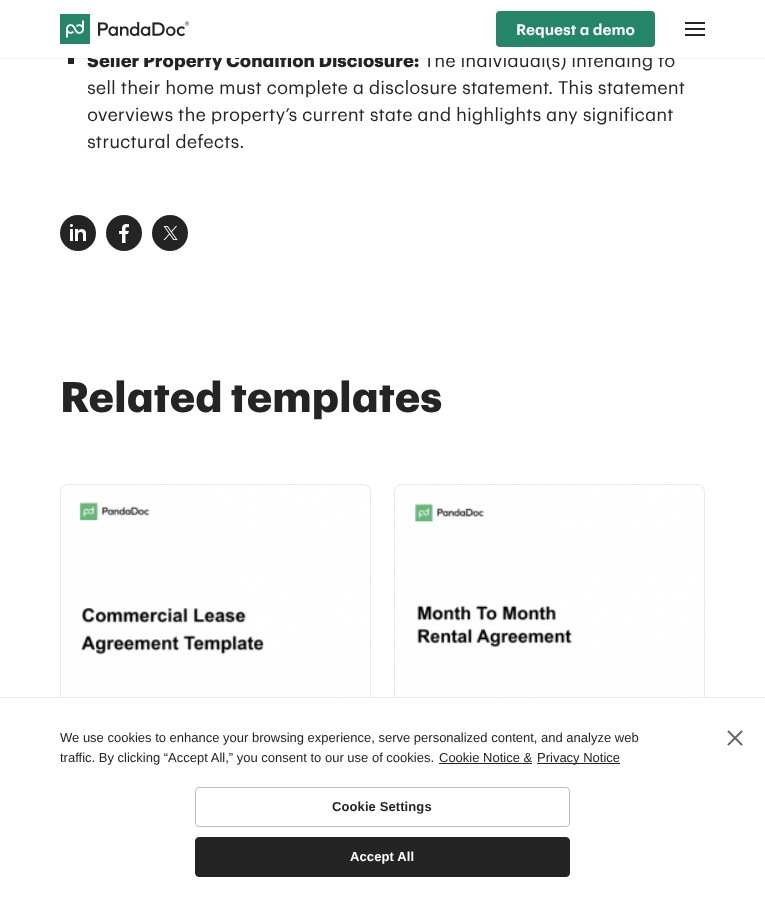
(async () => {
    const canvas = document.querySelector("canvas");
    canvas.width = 765;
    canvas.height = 907;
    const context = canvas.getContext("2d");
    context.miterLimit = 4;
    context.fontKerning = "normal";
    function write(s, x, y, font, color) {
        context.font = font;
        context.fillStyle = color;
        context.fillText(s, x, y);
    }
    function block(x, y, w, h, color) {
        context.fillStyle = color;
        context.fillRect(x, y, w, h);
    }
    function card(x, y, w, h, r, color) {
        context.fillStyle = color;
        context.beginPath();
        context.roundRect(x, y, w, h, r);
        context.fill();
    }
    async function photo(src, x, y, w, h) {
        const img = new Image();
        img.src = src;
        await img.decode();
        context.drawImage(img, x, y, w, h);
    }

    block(0, 0, 765, 907, "rgb(255, 255, 255)");
    block(68, 58, 6, 6, "rgb(36, 36, 36)");
    block(0, 58, 765, 1, "rgba(0, 0, 0, 0.05)");
    write("Seller Property Condition Disclosure:", 87, 67, "bold 18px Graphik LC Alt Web", "rgb(36, 36, 36)");
    write("The individual(s) intending to", 424, 67, "18px Graphik LC Alt Web", "rgb(36, 36, 36)");
    block(87, 53, 586, 5, "rgb(255, 255, 255)");
    await photo("media/1.png", 60, 14, 129, 30);
    context.fillStyle = "rgb(36, 133, 103)";
    context.beginPath();
    context.roundRect(497, 12, 157, 34, 3);
    context.fill();
    context.strokeStyle = "rgb(36, 133, 103)";
    context.lineWidth = 2;
    context.stroke();
    write("Request a demo", 516, 35, "600 15px Graphik LC Alt Web", "rgb(255, 255, 255)");
    await photo("media/2.png", 685, 22, 20, 14);
    write("sell their home must complete a disclosure statement. This statement", 87, 94, "18px Graphik LC Alt Web", "rgb(36, 36, 36)");
    write("overviews the property’s current state and highlights any significant", 87, 121, "18px Graphik LC Alt Web", "rgb(36, 36, 36)");
    write("structural defects.", 87, 148, "18px Graphik LC Alt Web", "rgb(36, 36, 36)");
    context.beginPath();
    context.arc(78, 233, 18, 0, Math.PI * 2);
    context.fill();
    await photo("media/3.png", 70, 224, 16, 17);
    context.beginPath();
    context.arc(124, 233, 18, 0, Math.PI * 2);
    context.fill();
    await photo("media/4.png", 119, 224, 10, 19);
    context.beginPath();
    context.arc(170, 233, 18, 0, Math.PI * 2);
    context.fill();
    await photo("media/5.png", 163, 226, 15, 14);
    write("Related templates", 60, 412, "bold 42px Graphik LC Alt Web", "rgb(36, 36, 36)");
    card(60, 484, 311, 403, 8, "rgb(248, 248, 248)");
    await photo("media/6.png", 60, 484, 311, 213);
    context.beginPath();
    context.roundRect(60.5, 484.5, 310, 402, 7.5);
    context.strokeStyle = "rgba(36, 36, 36, 0.1)";
    context.lineWidth = 1;
    context.stroke();
    card(394, 484, 311, 403, 8, "rgb(248, 248, 248)");
    await photo("media/7.png", 394, 484, 311, 213);
    context.beginPath();
    context.roundRect(394.5, 484.5, 310, 402, 7.5);
    context.stroke();
    block(60, 698, 645, 189, "rgb(255, 255, 255)");
    block(0, 697, 765, 1, "rgb(233, 233, 233)");
    write("We use cookies to enhance your browsing experience, serve personalized content, and analyze web", 60, 742, "13px Liberation Sans", "rgb(36, 36, 36)");
    write("traffic. By clicking “Accept All,” you consent to our use of cookies.", 60, 762, "13px Liberation Sans", "rgb(36, 36, 36)");
    write("Cookie Notice &", 439, 762, "13px Liberation Sans", "rgb(36, 36, 36)");
    block(439, 763, 93, 1, "rgb(36, 36, 36)");
    block(537, 763, 83, 1, "rgb(36, 36, 36)");
    write("Privacy Notice", 537, 762, "13px Liberation Sans", "rgb(36, 36, 36)");
    context.beginPath();
    context.roundRect(195.5, 787.5, 374, 39, 3.5);
    context.strokeStyle = "rgb(189, 189, 189)";
    context.stroke();
    context.letterSpacing = "0.1px";
    write("Cookie Settings", 332, 811, "bold 13px Liberation Sans", "rgb(36, 36, 36)");
    context.beginPath();
    context.roundRect(195.5, 837.5, 374, 39, 3.5);
    context.fill();
    context.strokeStyle = "rgb(36, 36, 36)";
    context.stroke();
    write("Accept All", 350, 861, "bold 13px Liberation Sans", "rgb(255, 255, 255)");
    await photo("media/8.png", 727, 730, 16, 16);
})();
